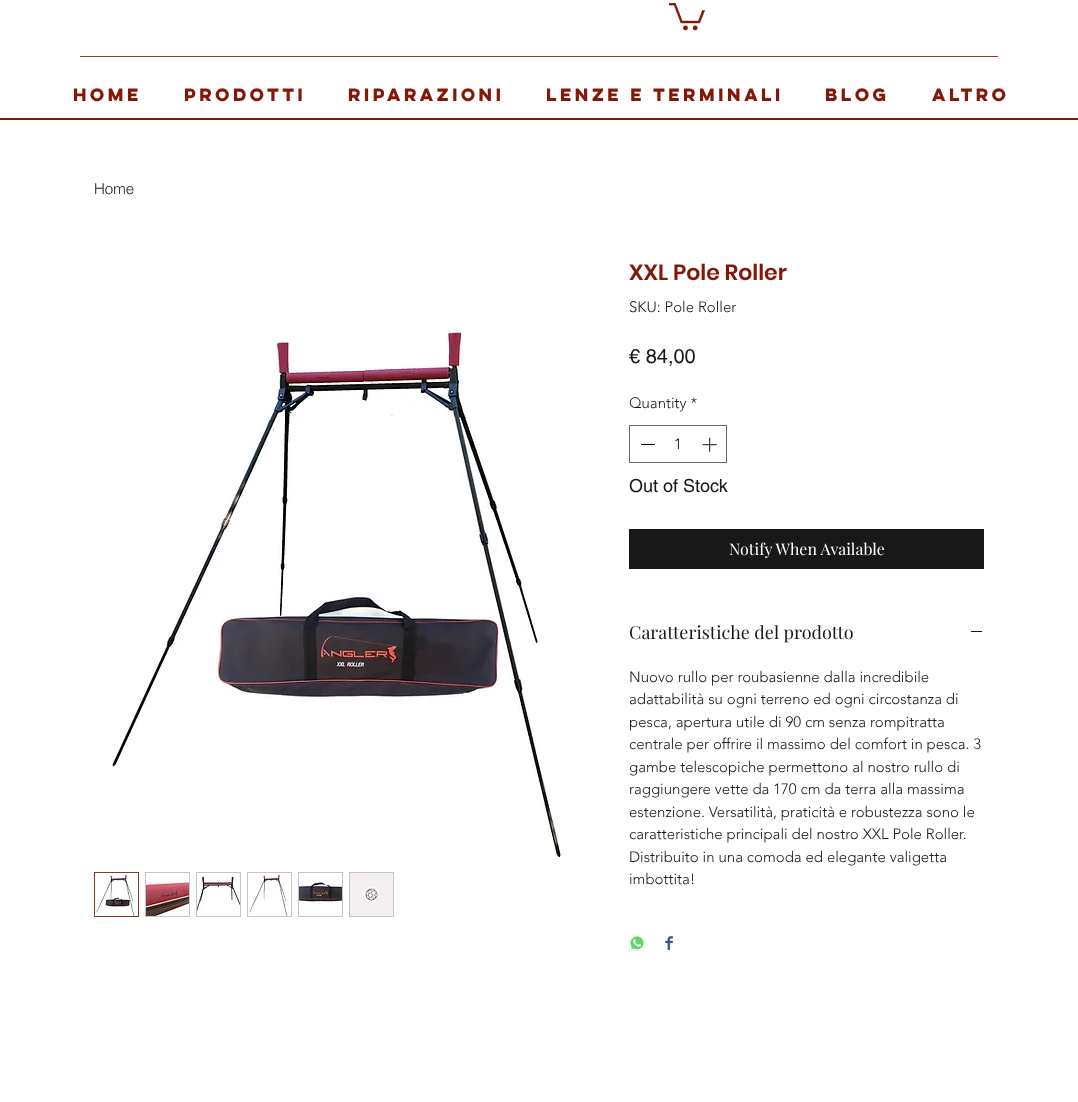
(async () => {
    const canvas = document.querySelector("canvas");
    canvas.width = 1078;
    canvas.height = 1102;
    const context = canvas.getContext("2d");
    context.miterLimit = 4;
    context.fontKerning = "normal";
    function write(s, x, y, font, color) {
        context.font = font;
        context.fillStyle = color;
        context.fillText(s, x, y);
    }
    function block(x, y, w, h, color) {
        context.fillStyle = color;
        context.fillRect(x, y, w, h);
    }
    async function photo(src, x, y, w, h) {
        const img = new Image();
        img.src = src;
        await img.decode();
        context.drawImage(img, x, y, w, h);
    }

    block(0, 0, 1078, 1102, "rgb(255, 255, 255)");
    await photo("media/1.png", 669, 3, 36, 28);
    block(80, 56, 918, 1, "rgb(151, 58, 44)");
    write("Home", 73, 101, "bold 16px 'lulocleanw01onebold'", "rgb(133, 23, 7)");
    write("Prodotti", 184, 101, "bold 16px 'lulocleanw01onebold'", "rgb(133, 23, 7)");
    write("Riparazioni", 348, 101, "bold 16px 'lulocleanw01onebold'", "rgb(133, 23, 7)");
    write("Lenze e terminali", 546, 101, "bold 16px 'lulocleanw01onebold'", "rgb(133, 23, 7)");
    write("Blog", 825, 101, "bold 16px 'lulocleanw01onebold'", "rgb(133, 23, 7)");
    write("Altro", 932, 101, "bold 16px 'lulocleanw01onebold'", "rgb(133, 23, 7)");
    block(0, 118, 1078, 2, "rgb(133, 23, 7)");
    write("Home", 94, 194, "300 15px helvetica", "rgb(24, 24, 24)");
    await photo("media/2.png", 111, 329, 456, 528);
    context.strokeStyle = "rgb(132, 57, 45)";
    context.strokeRect(94.5, 872.5, 44, 44);
    await photo("media/3.png", 95, 873, 40, 43);
    context.strokeStyle = "rgb(197, 197, 197)";
    context.strokeRect(145.5, 872.5, 44, 44);
    await photo("media/4.png", 146, 881, 43, 35);
    context.strokeRect(196.5, 872.5, 44, 44);
    await photo("media/5.png", 197, 876, 43, 36);
    context.strokeRect(247.5, 872.5, 44, 44);
    await photo("media/6.png", 248, 873, 40, 43);
    context.strokeRect(298.5, 872.5, 44, 44);
    await photo("media/7.png", 299, 881, 43, 24);
    context.strokeRect(349.5, 872.5, 44, 44);
    await photo("media/8.png", 350, 873, 43, 43);
    write("XXL Pole Roller", 629, 280, "600 22px Poppins", "rgb(133, 23, 7)");
    write("SKU: Pole Roller", 629, 312, "300 15px 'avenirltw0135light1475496'", "rgb(24, 24, 24)");
    write("€ 84,00", 629, 363, "20px helvetica", "rgb(24, 24, 24)");
    write("Quantity *", 629, 408, "300 15px 'avenirltw0135light1475496'", "rgb(24, 24, 24)");
    context.strokeStyle = "rgb(102, 102, 102)";
    context.strokeRect(629.5, 425.5, 97, 37);
    block(641, 444, 14, 1, "rgb(0, 0, 0)");
    write("1", 674, 449, "300 15px 'avenirltw0135light1475496'", "rgb(0, 0, 0)");
    await photo("media/9.png", 702, 437, 15, 15);
    write("Out of Stock", 629, 492, "18px helvetica", "rgb(24, 24, 24)");
    block(629, 529, 355, 40, "rgb(24, 24, 24)");
    write("Notify When Available", 729, 555, "16px Playfair Display", "rgb(255, 255, 255)");
    write("Caratteristiche del prodotto", 629, 639, "18px Playfair Display", "rgb(24, 24, 24)");
    block(971, 631, 11, 1, "rgb(24, 24, 24)");
    write("Nuovo rullo per roubasienne dalla incredibile", 629, 682, "300 15px 'avenirltw0135light1475496'", "rgb(24, 24, 24)");
    write("adattabilità su ogni terreno ed ogni circostanza di", 629, 704, "300 15px 'avenirltw0135light1475496'", "rgb(24, 24, 24)");
    write("pesca, apertura utile di 90 cm senza rompitratta", 629, 727, "300 15px 'avenirltw0135light1475496'", "rgb(24, 24, 24)");
    write("centrale per offrire il massimo del comfort in pesca. 3", 629, 749, "300 15px 'avenirltw0135light1475496'", "rgb(24, 24, 24)");
    write("gambe telescopiche permettono al nostro rullo di", 629, 772, "300 15px 'avenirltw0135light1475496'", "rgb(24, 24, 24)");
    write("raggiungere vette da 170 cm da terra alla massima", 629, 794, "300 15px 'avenirltw0135light1475496'", "rgb(24, 24, 24)");
    write("estenzione. Versatilità, praticità e robustezza sono le", 629, 817, "300 15px 'avenirltw0135light1475496'", "rgb(24, 24, 24)");
    write("caratteristiche principali del nostro XXL Pole Roller.", 629, 839, "300 15px 'avenirltw0135light1475496'", "rgb(24, 24, 24)");
    write("Distribuito in una comoda ed elegante valigetta", 629, 862, "300 15px 'avenirltw0135light1475496'", "rgb(24, 24, 24)");
    write("imbottita!", 629, 884, "300 15px 'avenirltw0135light1475496'", "rgb(24, 24, 24)");
    await photo("media/10.png", 629, 935, 16, 16);
    await photo("media/11.png", 665, 936, 8, 14);
})();
